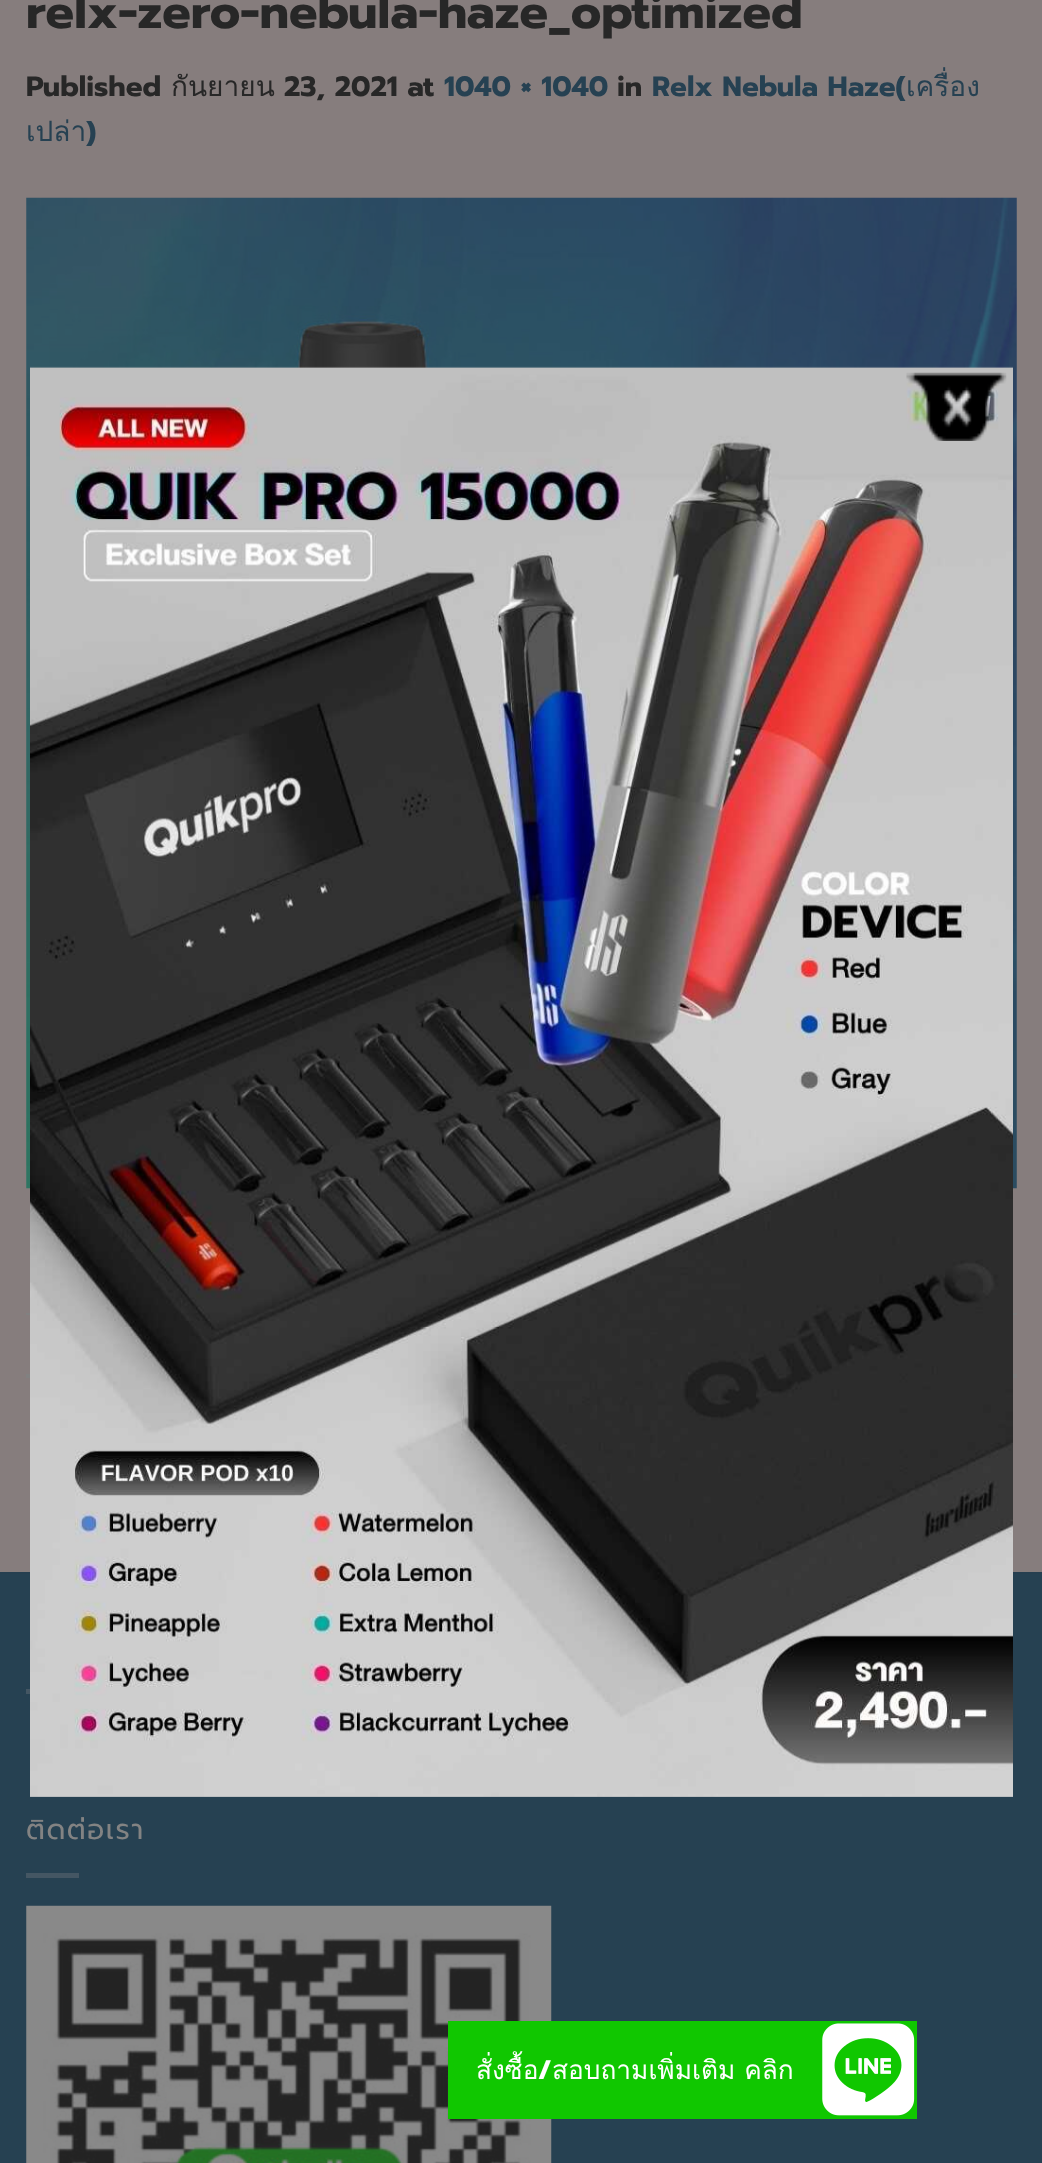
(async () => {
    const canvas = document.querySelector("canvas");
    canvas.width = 1042;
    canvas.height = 2163;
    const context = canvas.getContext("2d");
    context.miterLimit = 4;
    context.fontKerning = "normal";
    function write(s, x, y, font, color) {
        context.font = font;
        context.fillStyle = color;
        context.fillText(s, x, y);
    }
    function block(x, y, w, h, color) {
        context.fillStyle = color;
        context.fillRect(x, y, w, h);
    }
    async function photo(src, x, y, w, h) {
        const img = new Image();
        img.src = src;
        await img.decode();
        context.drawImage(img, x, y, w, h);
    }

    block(0, 0, 1042, 2163, "rgb(134, 125, 125)");
    write("relx-zero-nebula-haze_optimized", 26, 28, "bold 47.6px Prompt", "rgb(39, 39, 39)");
    write("Published", 26, 96, "bold 28px Prompt", "rgb(39, 39, 39)");
    write("กันยายน", 171, 96, "28px Loma", "rgb(39, 39, 39)");
    write("23, 2021 at", 284, 96, "bold 28px Prompt", "rgb(39, 39, 39)");
    write("1040 × 1040", 444, 96, "bold 28px Prompt", "rgb(38, 65, 82)");
    write("in", 617, 96, "bold 28px Prompt", "rgb(39, 39, 39)");
    write("Relx Nebula Haze(", 652, 96, "bold 28px Prompt", "rgb(38, 65, 82)");
    write("เครื่อง", 906, 96, "28px Loma", "rgb(38, 65, 82)");
    write("เปล่า", 26, 141, "28px Loma", "rgb(38, 65, 82)");
    write(")", 86, 141, "bold 28px Prompt", "rgb(38, 65, 82)");
    await photo("media/1.png", 26, 197, 991, 992);
    block(26, 1313, 991, 2, "rgb(129, 129, 129)");
    block(26, 1374, 991, 4, "rgb(129, 129, 129)");
    block(0, 1574, 1042, 589, "rgb(38, 65, 82)");
    block(0, 1572, 1042, 2, "rgb(38, 63, 80)");
    block(26, 1689, 4, 5, "rgb(68, 86, 99)");
    context.letterSpacing = "1.5px";
    write("ติดต่อเรา", 26, 1839, "28px Prompt", "rgb(131, 131, 131)");
    block(26, 1873, 53, 5, "rgb(68, 86, 99)");
    await photo("media/2.png", 26, 1905, 526, 258);
    await photo("media/3.png", 30, 366, 983, 1431);
    await photo("media/4.png", 906, 372, 101, 69);
    block(448, 2021, 469, 98, "rgb(16, 199, 0)");
    context.letterSpacing = "0px";
    write("สั่งซื้อ", 476, 2079, "26.25px Loma", "rgb(255, 255, 255)");
    write("/", 538, 2079, "bold 26.25px Prompt", "rgb(255, 255, 255)");
    write("สอบถามเพิ่มเติม คลิก", 552, 2079, "26.25px Loma", "rgb(255, 255, 255)");
    await photo("media/5.png", 822, 2023, 93, 93);
})();
